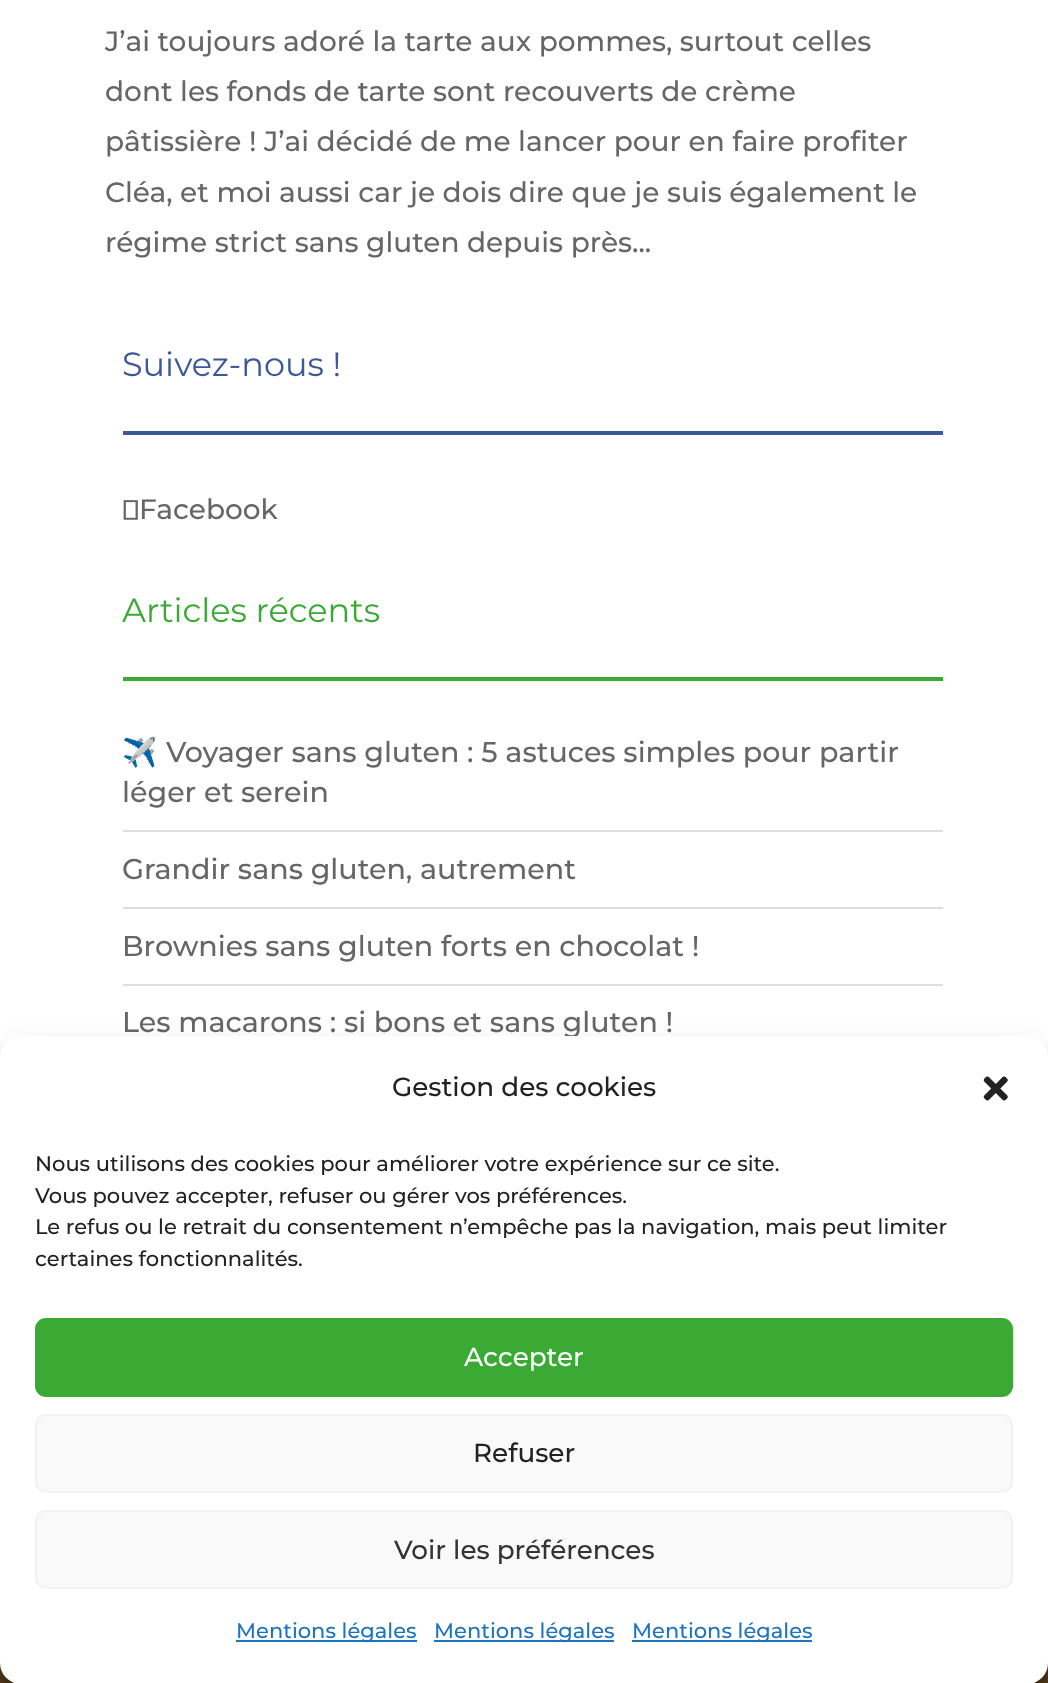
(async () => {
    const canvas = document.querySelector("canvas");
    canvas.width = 1048;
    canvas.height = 1683;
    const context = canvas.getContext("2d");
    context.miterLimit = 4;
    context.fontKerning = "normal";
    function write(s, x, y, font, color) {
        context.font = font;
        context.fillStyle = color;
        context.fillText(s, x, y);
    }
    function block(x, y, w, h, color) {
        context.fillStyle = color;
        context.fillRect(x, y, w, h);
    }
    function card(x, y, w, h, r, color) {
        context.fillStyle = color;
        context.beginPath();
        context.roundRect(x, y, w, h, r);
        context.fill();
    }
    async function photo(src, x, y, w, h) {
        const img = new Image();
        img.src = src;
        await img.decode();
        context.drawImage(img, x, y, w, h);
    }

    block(0, 0, 1048, 1683, "rgb(255, 255, 255)");
    write("J’ai toujours adoré la tarte aux pommes, surtout celles", 105, 51, "100 28px Montserrat", "rgb(102, 102, 102)");
    write("dont les fonds de tarte sont recouverts de crème", 105, 101, "100 28px Montserrat", "rgb(102, 102, 102)");
    write("pâtissière ! J’ai décidé de me lancer pour en faire profiter", 105, 151, "100 28px Montserrat", "rgb(102, 102, 102)");
    write("Cléa, et moi aussi car je dois dire que je suis également le", 105, 202, "100 28px Montserrat", "rgb(102, 102, 102)");
    write("régime strict sans gluten depuis près...", 105, 252, "100 28px Montserrat", "rgb(102, 102, 102)");
    block(123, 431, 820, 4, "rgb(60, 88, 152)");
    write("Suivez-nous !", 122, 376, "100 33.5px 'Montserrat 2'", "rgb(60, 88, 152)");
    await photo("media/1.png", 123, 500, 15, 20);
    write("Facebook", 139, 519, "100 28px Montserrat", "rgb(102, 102, 102)");
    block(123, 677, 820, 4, "rgb(58, 170, 53)");
    write("Articles récents", 122, 622, "100 33.5px 'Montserrat 2'", "rgb(58, 170, 53)");
    block(123, 830, 820, 2, "rgb(223, 222, 222)");
    write("✈️", 122, 762, "28.55px Noto Color Emoji", "rgb(102, 102, 102)");
    write("Voyager sans gluten : 5 astuces simples pour partir", 166, 762, "100 28.55px Montserrat", "rgb(102, 102, 102)");
    write("léger et serein", 122, 802, "100 28.55px Montserrat", "rgb(102, 102, 102)");
    block(123, 907, 820, 2, "rgb(223, 222, 222)");
    write("Grandir sans gluten, autrement", 122, 879, "100 28.55px Montserrat", "rgb(102, 102, 102)");
    block(123, 984, 820, 2, "rgb(223, 222, 222)");
    write("Brownies sans gluten forts en chocolat !", 122, 956, "100 28.55px Montserrat", "rgb(102, 102, 102)");
    write("Les macarons : si bons et sans gluten !", 122, 1032, "100 28.55px Montserrat", "rgb(102, 102, 102)");
    block(0, 1663, 1048, 20, "rgb(90, 63, 28)");
    context.fillStyle = "rgba(0, 0, 0, 0.23)";
    context.filter = "blur(5px)";
    context.beginPath();
    context.roundRect(0, 1047, 1048, 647, 21);
    context.fill();
    context.filter = "none";
    context.fillStyle = "rgba(0, 0, 0, 0.19)";
    context.filter = "blur(17.5px)";
    context.beginPath();
    context.roundRect(0, 1054, 1048, 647, 21);
    context.fill();
    context.filter = "none";
    card(0, 1036, 1048, 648, 21, "rgb(255, 255, 255)");
    write("Gestion des cookies", 392, 1096, "100 26.25px Montserrat", "rgb(34, 34, 34)");
    await photo("media/2.png", 983, 1076, 25, 25);
    write("Nous utilisons des cookies pour améliorer votre expérience sur ce site.", 35, 1171, "100 21px Montserrat", "rgb(34, 34, 34)");
    write("Vous pouvez accepter, refuser ou gérer vos préférences.", 35, 1203, "100 21px Montserrat", "rgb(34, 34, 34)");
    write("Le refus ou le retrait du consentement n’empêche pas la navigation, mais peut limiter", 35, 1234, "100 21px Montserrat", "rgb(34, 34, 34)");
    write("certaines fonctionnalités.", 35, 1266, "100 21px Montserrat", "rgb(34, 34, 34)");
    context.fillStyle = "rgb(58, 170, 53)";
    context.beginPath();
    context.roundRect(36, 1319, 976, 77, 10);
    context.fill();
    context.strokeStyle = "rgb(58, 170, 53)";
    context.lineWidth = 2;
    context.stroke();
    write("Accepter", 464, 1366, "100 26.25px Montserrat", "rgb(255, 255, 255)");
    context.fillStyle = "rgb(249, 249, 249)";
    context.beginPath();
    context.roundRect(36, 1415, 976, 77, 10);
    context.fill();
    context.strokeStyle = "rgb(242, 242, 242)";
    context.stroke();
    write("Refuser", 473, 1462, "100 26.25px Montserrat", "rgb(34, 34, 34)");
    context.fillStyle = "rgb(249, 249, 249)";
    context.beginPath();
    context.roundRect(36, 1511, 976, 77, 10);
    context.fill();
    context.stroke();
    write("Voir les préférences", 394, 1559, "100 26.25px Montserrat", "rgb(51, 51, 51)");
    block(236, 1640, 181, 2, "rgb(30, 115, 190)");
    write("Mentions légales", 236, 1638, "100 21px Montserrat", "rgb(30, 115, 190)");
    block(434, 1640, 180, 2, "rgb(30, 115, 190)");
    write("Mentions légales", 434, 1638, "100 21px Montserrat", "rgb(30, 115, 190)");
    block(632, 1640, 180, 2, "rgb(30, 115, 190)");
    write("Mentions légales", 632, 1638, "100 21px Montserrat", "rgb(30, 115, 190)");
})();
